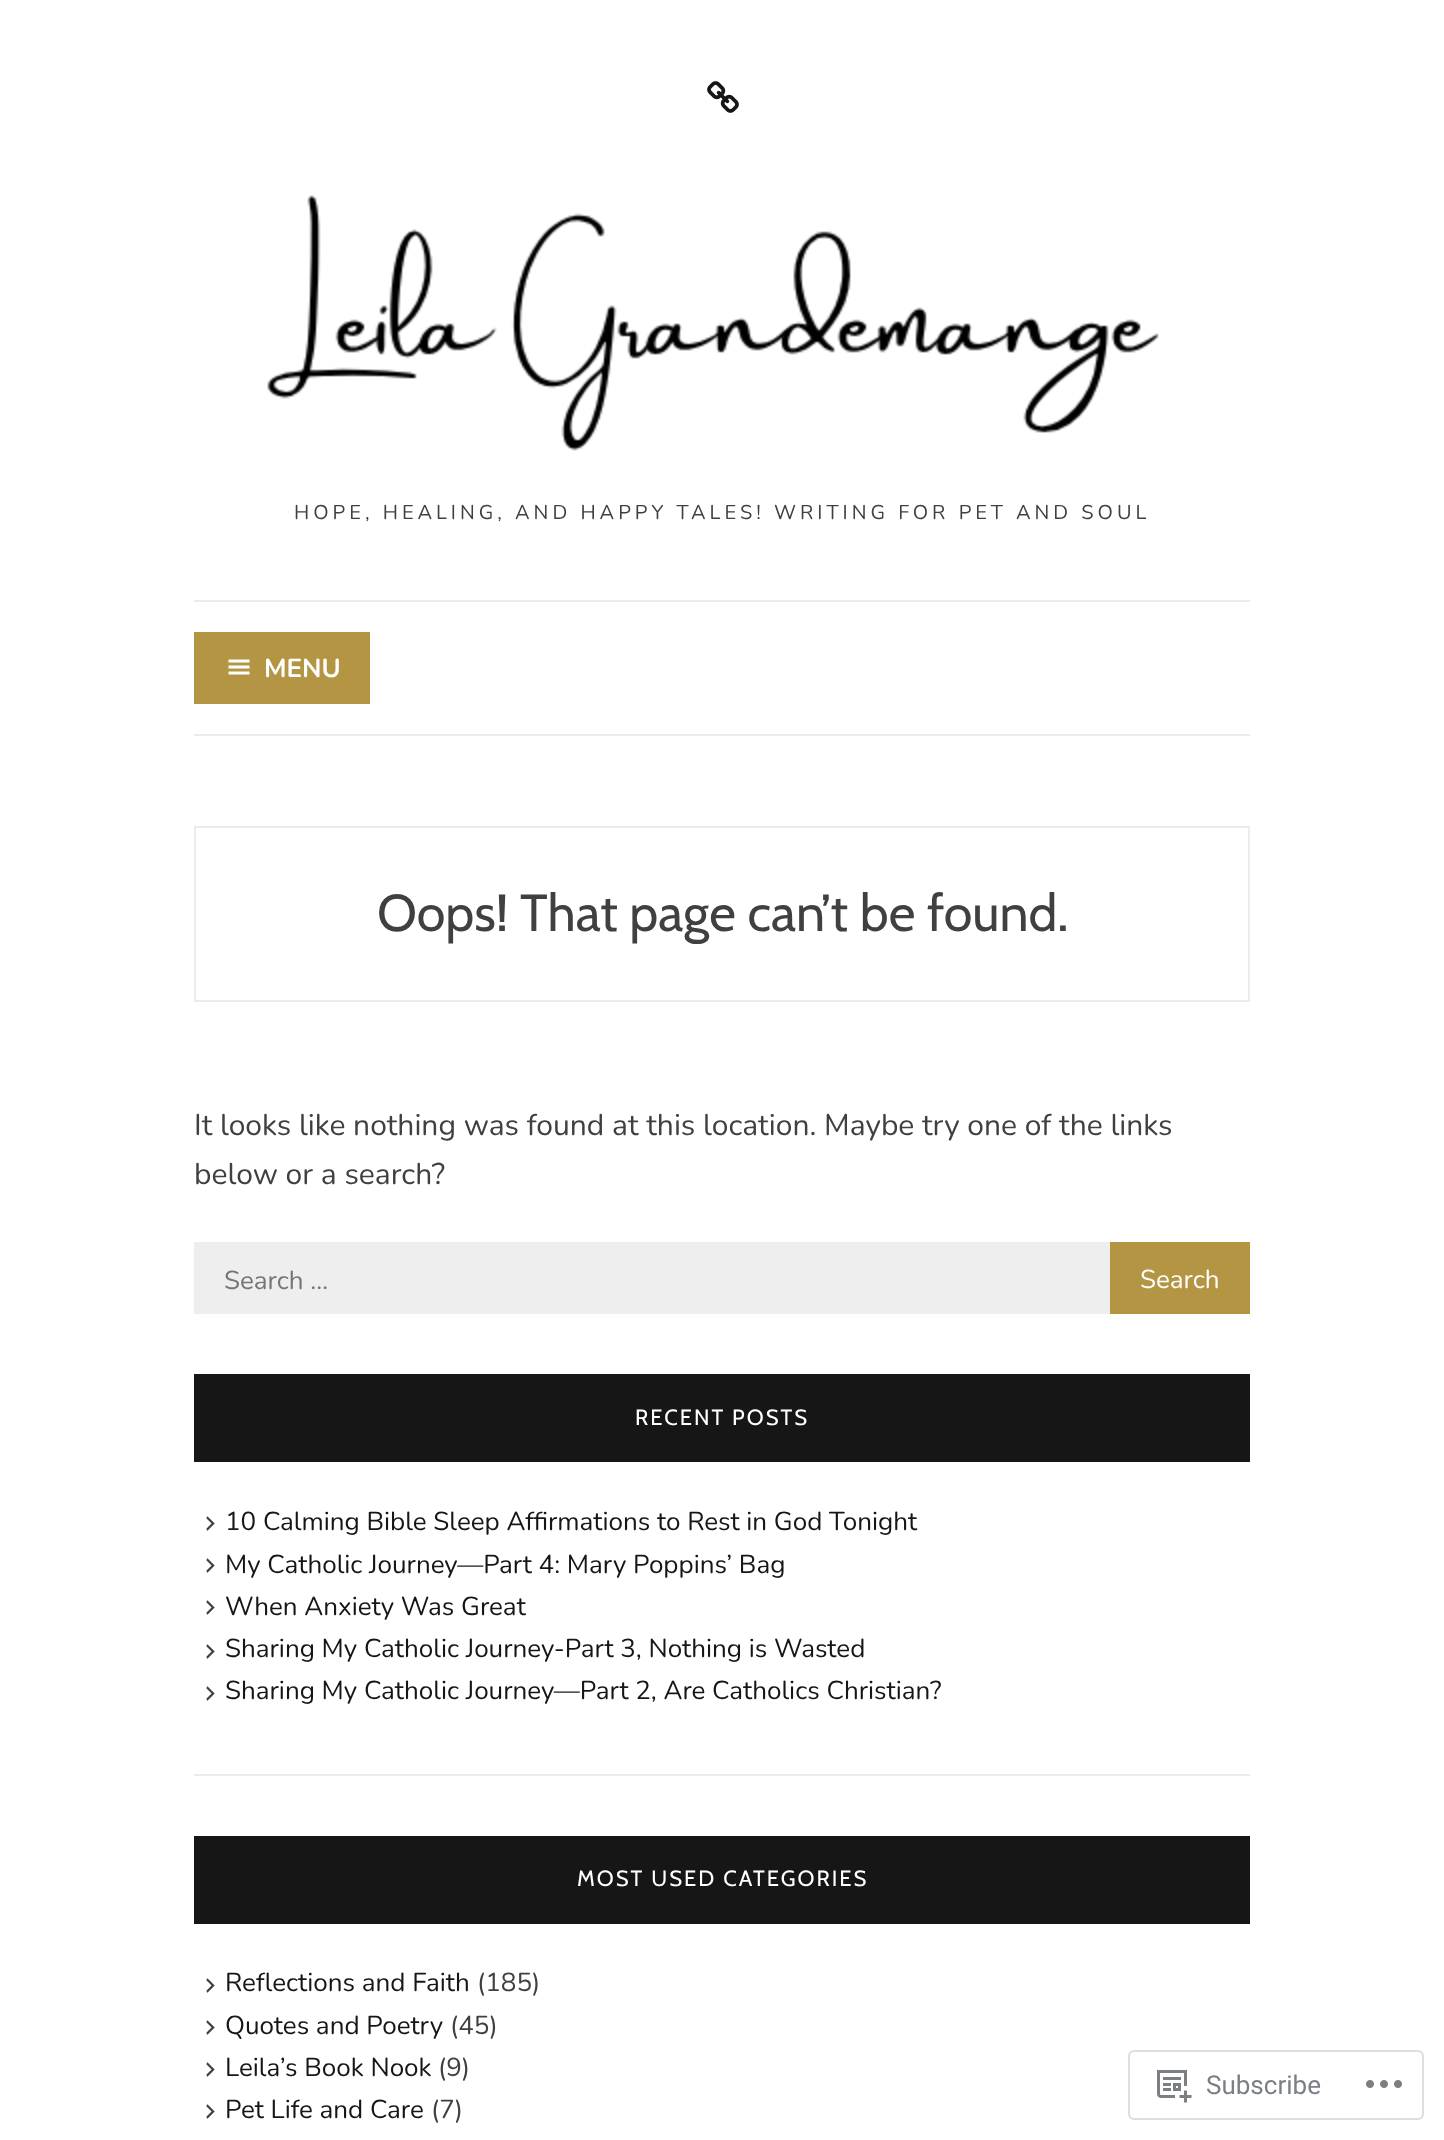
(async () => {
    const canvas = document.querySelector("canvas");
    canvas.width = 1444;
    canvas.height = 2140;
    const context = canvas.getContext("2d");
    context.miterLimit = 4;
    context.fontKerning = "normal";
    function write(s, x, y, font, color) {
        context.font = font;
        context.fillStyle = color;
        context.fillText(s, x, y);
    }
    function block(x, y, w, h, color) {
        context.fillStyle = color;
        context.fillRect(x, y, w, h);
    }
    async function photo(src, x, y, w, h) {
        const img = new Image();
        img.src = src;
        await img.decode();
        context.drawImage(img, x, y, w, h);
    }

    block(0, 0, 1444, 2140, "rgb(255, 255, 255)");
    await photo("media/1.png", 707, 81, 32, 32);
    await photo("media/2.png", 267, 195, 892, 256);
    context.letterSpacing = "4px";
    write("HOPE, HEALING, AND HAPPY TALES! WRITING FOR PET AND SOUL", 294, 519, "20px Nunito", "rgb(64, 64, 64)");
    block(194, 600, 1056, 2, "rgb(235, 235, 235)");
    block(194, 734, 1056, 2, "rgb(235, 235, 235)");
    block(194, 632, 176, 72, "rgb(180, 149, 67)");
    await photo("media/3.png", 228, 659, 22, 16);
    context.letterSpacing = "0px";
    write("MENU", 264, 677, "bold 26px Nunito", "rgb(255, 255, 255)");
    context.strokeStyle = "rgb(235, 235, 235)";
    context.lineWidth = 2;
    context.strokeRect(195, 827, 1054, 174);
    write("Oops! That page can’t be found.", 377, 931, "52px Cabin", "rgb(64, 64, 64)");
    write("It looks like nothing was found at this location. Maybe try one of the links", 194, 1135, "30px Nunito", "rgb(64, 64, 64)");
    write("below or a search?", 194, 1184, "30px Nunito", "rgb(64, 64, 64)");
    block(194, 1242, 916, 72, "rgb(238, 238, 238)");
    write("Search …", 224, 1289, "26px Nunito", "rgb(117, 117, 117)");
    block(1110, 1242, 140, 72, "rgb(180, 149, 67)");
    write("Search", 1140, 1288, "26px Nunito", "rgb(255, 255, 255)");
    block(194, 1774, 1056, 2, "rgb(235, 235, 235)");
    block(194, 1374, 1056, 88, "rgb(22, 22, 22)");
    context.letterSpacing = "2px";
    write("RECENT POSTS", 635, 1425, "22px Cabin", "rgb(255, 255, 255)");
    await photo("media/4.png", 206, 1516, 9, 15);
    context.letterSpacing = "0px";
    write("10 Calming Bible Sleep Affirmations to Rest in God Tonight", 225, 1530, "26px Nunito", "rgb(22, 22, 22)");
    await photo("media/4.png", 206, 1558, 9, 15);
    write("My Catholic Journey—Part 4: Mary Poppins’ Bag", 225, 1573, "26px Nunito", "rgb(22, 22, 22)");
    await photo("media/4.png", 206, 1600, 9, 15);
    write("When Anxiety Was Great", 225, 1615, "26px Nunito", "rgb(22, 22, 22)");
    await photo("media/4.png", 206, 1644, 9, 15);
    write("Sharing My Catholic Journey-Part 3, Nothing is Wasted", 225, 1657, "26px Nunito", "rgb(22, 22, 22)");
    await photo("media/4.png", 206, 1686, 9, 15);
    write("Sharing My Catholic Journey—Part 2, Are Catholics Christian?", 225, 1699, "26px Nunito", "rgb(22, 22, 22)");
    block(194, 1836, 1056, 88, "rgb(22, 22, 22)");
    context.letterSpacing = "2px";
    write("MOST USED CATEGORIES", 577, 1886, "22px Cabin", "rgb(255, 255, 255)");
    await photo("media/4.png", 206, 1978, 9, 15);
    context.letterSpacing = "0px";
    write("Reflections and Faith", 225, 1991, "26px Nunito", "rgb(22, 22, 22)");
    write("(185)", 477, 1991, "26px Nunito", "rgb(64, 64, 64)");
    await photo("media/4.png", 206, 2020, 9, 15);
    write("Quotes and Poetry", 225, 2034, "26px Nunito", "rgb(22, 22, 22)");
    write("(45)", 450, 2034, "26px Nunito", "rgb(64, 64, 64)");
    await photo("media/4.png", 206, 2062, 9, 15);
    write("Leila’s Book Nook", 225, 2076, "26px Nunito", "rgb(22, 22, 22)");
    write("(9)", 438, 2076, "26px Nunito", "rgb(64, 64, 64)");
    await photo("media/4.png", 206, 2104, 9, 15);
    write("Pet Life and Care", 225, 2118, "26px Nunito", "rgb(22, 22, 22)");
    write("(7)", 431, 2118, "26px Nunito", "rgb(64, 64, 64)");
    context.beginPath();
    context.roundRect(1129, 2051, 294, 68, 5);
    context.strokeStyle = "rgb(221, 221, 223)";
    context.stroke();
    await photo("media/5.png", 1157, 2070, 35, 33);
    write("Subscribe", 1206, 2094, "26px Roboto", "rgb(123, 127, 133)");
    await photo("media/6.png", 1366, 2080, 36, 8);
})();
